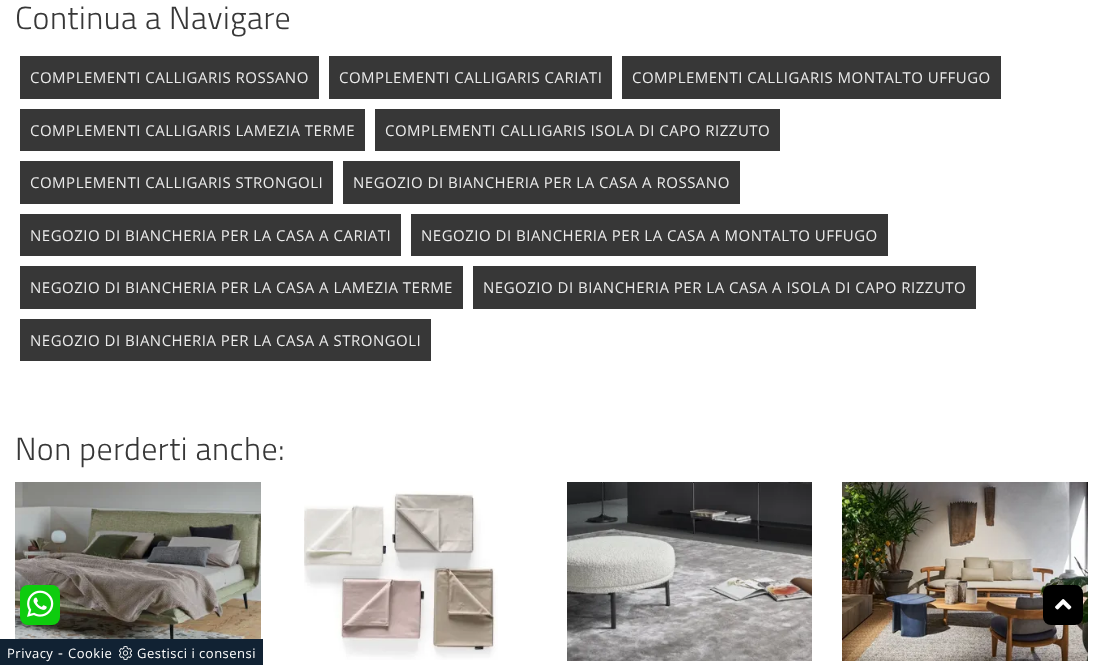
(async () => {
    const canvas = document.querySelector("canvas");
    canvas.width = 1103;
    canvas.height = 665;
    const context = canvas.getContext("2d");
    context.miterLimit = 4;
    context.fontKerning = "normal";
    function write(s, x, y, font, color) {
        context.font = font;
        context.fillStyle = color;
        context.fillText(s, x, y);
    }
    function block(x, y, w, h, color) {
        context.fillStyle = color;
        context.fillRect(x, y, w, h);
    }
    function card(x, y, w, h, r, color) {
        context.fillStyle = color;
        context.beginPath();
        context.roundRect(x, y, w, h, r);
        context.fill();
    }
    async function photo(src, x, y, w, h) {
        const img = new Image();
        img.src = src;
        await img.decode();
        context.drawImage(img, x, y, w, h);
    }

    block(0, 0, 1103, 665, "rgb(255, 255, 255)");
    context.letterSpacing = "0.5px";
    write("Continua a Navigare", 15, 29, "300 32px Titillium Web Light", "rgb(55, 55, 55)");
    block(20, 56, 299, 43, "rgb(55, 55, 55)");
    write("COMPLEMENTI CALLIGARIS ROSSANO", 30, 83, "15px Open Sans", "rgb(235, 235, 235)");
    block(329, 56, 283, 43, "rgb(55, 55, 55)");
    write("COMPLEMENTI CALLIGARIS CARIATI", 339, 83, "15px Open Sans", "rgb(235, 235, 235)");
    block(622, 56, 379, 43, "rgb(55, 55, 55)");
    write("COMPLEMENTI CALLIGARIS MONTALTO UFFUGO", 632, 83, "15px Open Sans", "rgb(235, 235, 235)");
    block(20, 109, 345, 42, "rgb(55, 55, 55)");
    write("COMPLEMENTI CALLIGARIS LAMEZIA TERME", 30, 136, "15px Open Sans", "rgb(235, 235, 235)");
    block(375, 109, 405, 42, "rgb(55, 55, 55)");
    write("COMPLEMENTI CALLIGARIS ISOLA DI CAPO RIZZUTO", 385, 136, "15px Open Sans", "rgb(235, 235, 235)");
    block(20, 161, 313, 43, "rgb(55, 55, 55)");
    write("COMPLEMENTI CALLIGARIS STRONGOLI", 30, 188, "15px Open Sans", "rgb(235, 235, 235)");
    block(343, 161, 397, 43, "rgb(55, 55, 55)");
    write("NEGOZIO DI BIANCHERIA PER LA CASA A ROSSANO", 353, 188, "15px Open Sans", "rgb(235, 235, 235)");
    block(20, 214, 381, 42, "rgb(55, 55, 55)");
    write("NEGOZIO DI BIANCHERIA PER LA CASA A CARIATI", 30, 241, "15px Open Sans", "rgb(235, 235, 235)");
    block(411, 214, 477, 42, "rgb(55, 55, 55)");
    write("NEGOZIO DI BIANCHERIA PER LA CASA A MONTALTO UFFUGO", 421, 241, "15px Open Sans", "rgb(235, 235, 235)");
    block(20, 266, 443, 43, "rgb(55, 55, 55)");
    write("NEGOZIO DI BIANCHERIA PER LA CASA A LAMEZIA TERME", 30, 293, "15px Open Sans", "rgb(235, 235, 235)");
    block(473, 266, 503, 43, "rgb(55, 55, 55)");
    write("NEGOZIO DI BIANCHERIA PER LA CASA A ISOLA DI CAPO RIZZUTO", 483, 293, "15px Open Sans", "rgb(235, 235, 235)");
    block(20, 319, 411, 42, "rgb(55, 55, 55)");
    write("NEGOZIO DI BIANCHERIA PER LA CASA A STRONGOLI", 30, 346, "15px Open Sans", "rgb(235, 235, 235)");
    write("Non perderti anche:", 15, 460, "300 32px Titillium Web Light", "rgb(55, 55, 55)");
    await photo("media/1.png", 15, 482, 246, 157);
    await photo("media/2.png", 304, 491, 194, 169);
    await photo("media/3.png", 567, 482, 245, 179);
    await photo("media/4.png", 842, 482, 246, 179);
    card(20, 585, 40, 40, 8, "rgb(14, 204, 14)");
    await photo("media/5.png", 27, 590, 27, 27);
    card(1043, 585, 40, 40, 8, "rgb(0, 0, 0)");
    await photo("media/6.png", 1055, 599, 17, 11);
    block(0, 639, 263, 26, "rgb(17, 34, 51)");
    write("Privacy", 7, 658, "13px Open Sans", "rgb(255, 255, 255)");
    write("-", 58, 658, "15px Open Sans", "rgb(255, 255, 255)");
    write("Cookie", 68, 658, "13px Open Sans", "rgb(255, 255, 255)");
    await photo("media/7.png", 119, 646, 13, 14);
    write("Gestisci i consensi", 137, 658, "13px Open Sans", "rgb(255, 255, 255)");
})();
